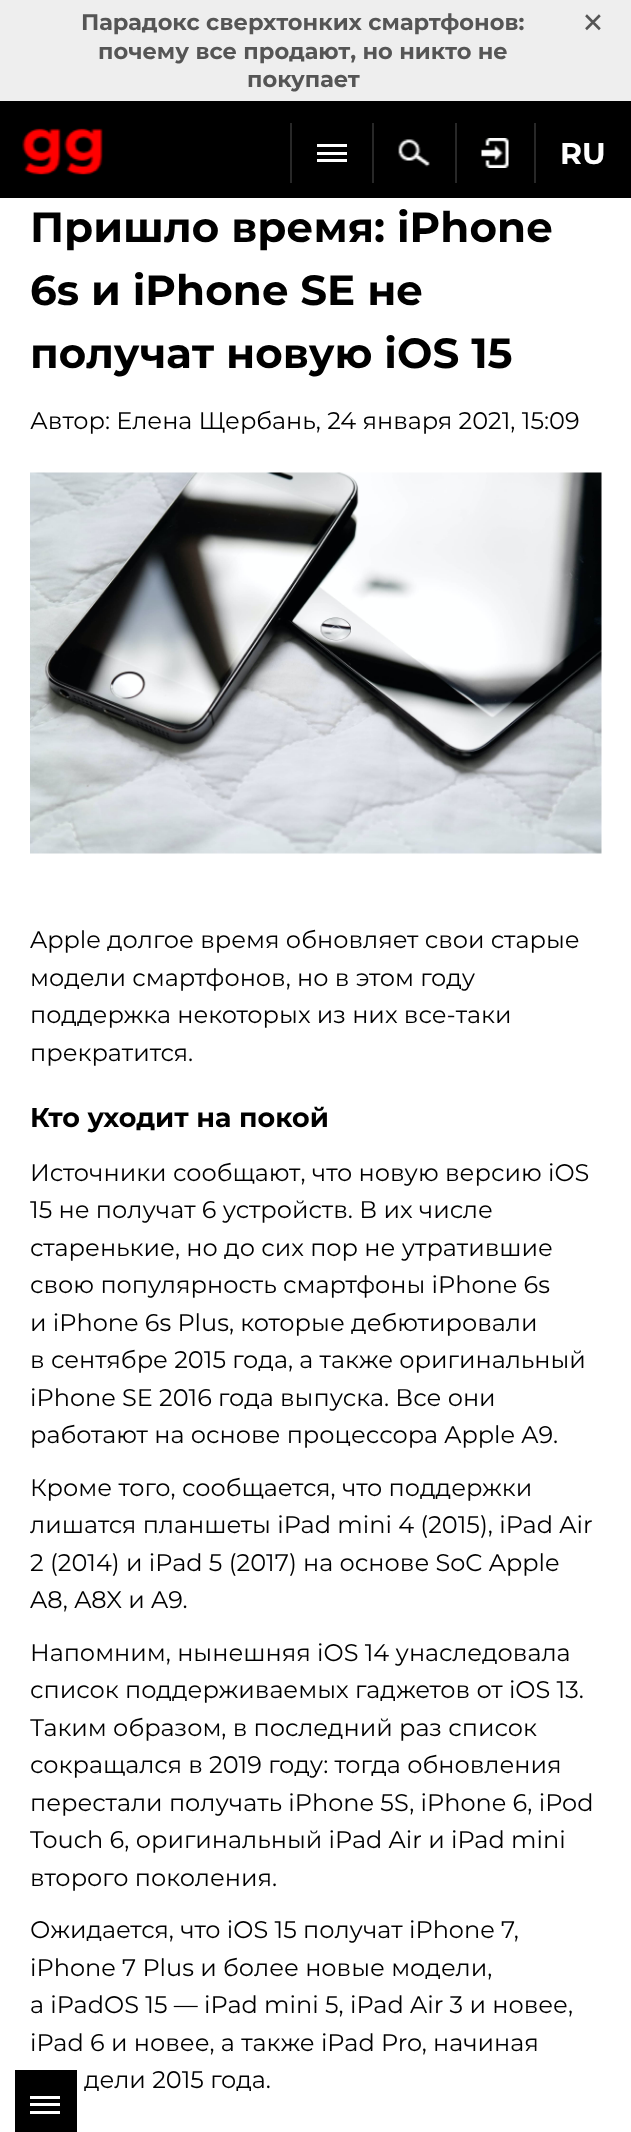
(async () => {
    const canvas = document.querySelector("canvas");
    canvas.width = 631;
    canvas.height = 2132;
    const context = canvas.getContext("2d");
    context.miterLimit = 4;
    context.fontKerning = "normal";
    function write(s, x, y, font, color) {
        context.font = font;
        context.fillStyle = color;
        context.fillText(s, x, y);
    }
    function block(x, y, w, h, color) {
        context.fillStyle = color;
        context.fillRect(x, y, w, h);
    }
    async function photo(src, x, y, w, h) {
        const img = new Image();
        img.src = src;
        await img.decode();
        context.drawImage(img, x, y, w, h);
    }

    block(0, 0, 631, 2132, "rgb(255, 255, 255)");
    block(0, 101, 631, 97, "rgb(0, 0, 0)");
    block(0, 0, 631, 101, "rgb(238, 238, 238)");
    write("Парадокс сверхтонких смартфонов:", 81, 30, "100 22.5px 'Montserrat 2'", "rgb(85, 85, 85)");
    write("×", 580, 38, "100 45px Montserrat", "rgb(85, 85, 85)");
    write("почему все продают, но никто не", 98, 59, "100 22.5px 'Montserrat 2'", "rgb(85, 85, 85)");
    write("покупает", 247, 87, "100 22.5px 'Montserrat 2'", "rgb(85, 85, 85)");
    await photo("media/1.png", 22, 128, 81, 47);
    block(290, 123, 2, 60, "rgb(40, 40, 40)");
    block(317, 144, 30, 3, "rgb(255, 255, 255)");
    block(317, 152, 30, 3, "rgb(255, 255, 255)");
    block(317, 159, 30, 3, "rgb(255, 255, 255)");
    block(372, 123, 2, 60, "rgb(40, 40, 40)");
    await photo("media/2.png", 398, 139, 32, 28);
    block(455, 123, 2, 60, "rgb(40, 40, 40)");
    await photo("media/3.png", 481, 138, 28, 30);
    block(534, 123, 2, 60, "rgb(40, 40, 40)");
    write("RU", 560, 164, "100 30px 'Montserrat 2'", "rgb(255, 255, 255)");
    write("Пришло время: iPhone", 30, 242, "100 42px 'Montserrat 2'", "rgb(0, 0, 0)");
    write("6s и iPhone SE не", 30, 305, "100 42px 'Montserrat 2'", "rgb(0, 0, 0)");
    write("получат новую iOS 15", 30, 368, "100 42px 'Montserrat 2'", "rgb(0, 0, 0)");
    write("Автор: Елена Щербань, 24 января 2021, 15:09", 30, 429, "100 24px Montserrat", "rgb(0, 0, 0)");
    await photo("media/4.png", 30, 472, 572, 382);
    write("Apple долгое время обновляет свои старые", 30, 948, "100 24px Montserrat", "rgb(0, 0, 0)");
    write("модели смартфонов, но в этом году", 30, 986, "100 24px Montserrat", "rgb(0, 0, 0)");
    write("поддержка некоторых из них все-таки", 30, 1023, "100 24px Montserrat", "rgb(0, 0, 0)");
    write("прекратится.", 30, 1061, "100 24px Montserrat", "rgb(0, 0, 0)");
    write("Кто уходит на покой", 30, 1127, "100 27px 'Montserrat 2'", "rgb(0, 0, 0)");
    write("Источники сообщают, что новую версию iOS", 30, 1181, "100 24px Montserrat", "rgb(0, 0, 0)");
    write("15 не получат 6 устройств. В их числе", 30, 1218, "100 24px Montserrat", "rgb(0, 0, 0)");
    write("старенькие, но до сих пор не утратившие", 30, 1256, "100 24px Montserrat", "rgb(0, 0, 0)");
    write("свою популярность смартфоны iPhone 6s", 30, 1293, "100 24px Montserrat", "rgb(0, 0, 0)");
    write("и iPhone 6s Plus, которые дебютировали", 30, 1331, "100 24px Montserrat", "rgb(0, 0, 0)");
    write("в сентябре 2015 года, а также оригинальный", 30, 1368, "100 24px Montserrat", "rgb(0, 0, 0)");
    write("iPhone SE 2016 года выпуска. Все они", 30, 1406, "100 24px Montserrat", "rgb(0, 0, 0)");
    write("работают на основе процессора Apple A9.", 30, 1443, "100 24px Montserrat", "rgb(0, 0, 0)");
    write("Кроме того, сообщается, что поддержки", 30, 1496, "100 24px Montserrat", "rgb(0, 0, 0)");
    write("лишатся планшеты iPad mini 4 (2015), iPad Air", 30, 1533, "100 24px Montserrat", "rgb(0, 0, 0)");
    write("2 (2014) и iPad 5 (2017) на основе SoC Apple", 30, 1571, "100 24px Montserrat", "rgb(0, 0, 0)");
    write("A8, A8X и A9.", 30, 1608, "100 24px Montserrat", "rgb(0, 0, 0)");
    write("Напомним, нынешняя iOS 14 унаследовала", 30, 1661, "100 24px Montserrat", "rgb(0, 0, 0)");
    write("список поддерживаемых гаджетов от iOS 13.", 30, 1698, "100 24px Montserrat", "rgb(0, 0, 0)");
    write("Таким образом, в последний раз список", 30, 1736, "100 24px Montserrat", "rgb(0, 0, 0)");
    write("сокращался в 2019 году: тогда обновления", 30, 1773, "100 24px Montserrat", "rgb(0, 0, 0)");
    write("перестали получать iPhone 5S, iPhone 6, iPod", 30, 1811, "100 24px Montserrat", "rgb(0, 0, 0)");
    write("Touch 6, оригинальный iPad Air и iPad mini", 30, 1848, "100 24px Montserrat", "rgb(0, 0, 0)");
    write("второго поколения.", 30, 1886, "100 24px Montserrat", "rgb(0, 0, 0)");
    write("Ожидается, что iOS 15 получат iPhone 7,", 30, 1938, "100 24px Montserrat", "rgb(0, 0, 0)");
    write("iPhone 7 Plus и более новые модели,", 30, 1976, "100 24px Montserrat", "rgb(0, 0, 0)");
    write("а iPadOS 15 — iPad mini 5, iPad Air 3 и новее,", 30, 2013, "100 24px Montserrat", "rgb(0, 0, 0)");
    write("iPad 6 и новее, а также iPad Pro, начиная", 30, 2051, "100 24px Montserrat", "rgb(0, 0, 0)");
    write("дели 2015 года.", 84, 2088, "100 24px Montserrat", "rgb(0, 0, 0)");
    block(15, 2070, 62, 62, "rgb(0, 0, 0)");
    block(30, 2096, 30, 3, "rgb(255, 255, 255)");
    block(30, 2103, 30, 3, "rgb(255, 255, 255)");
    block(30, 2111, 30, 3, "rgb(255, 255, 255)");
})();
